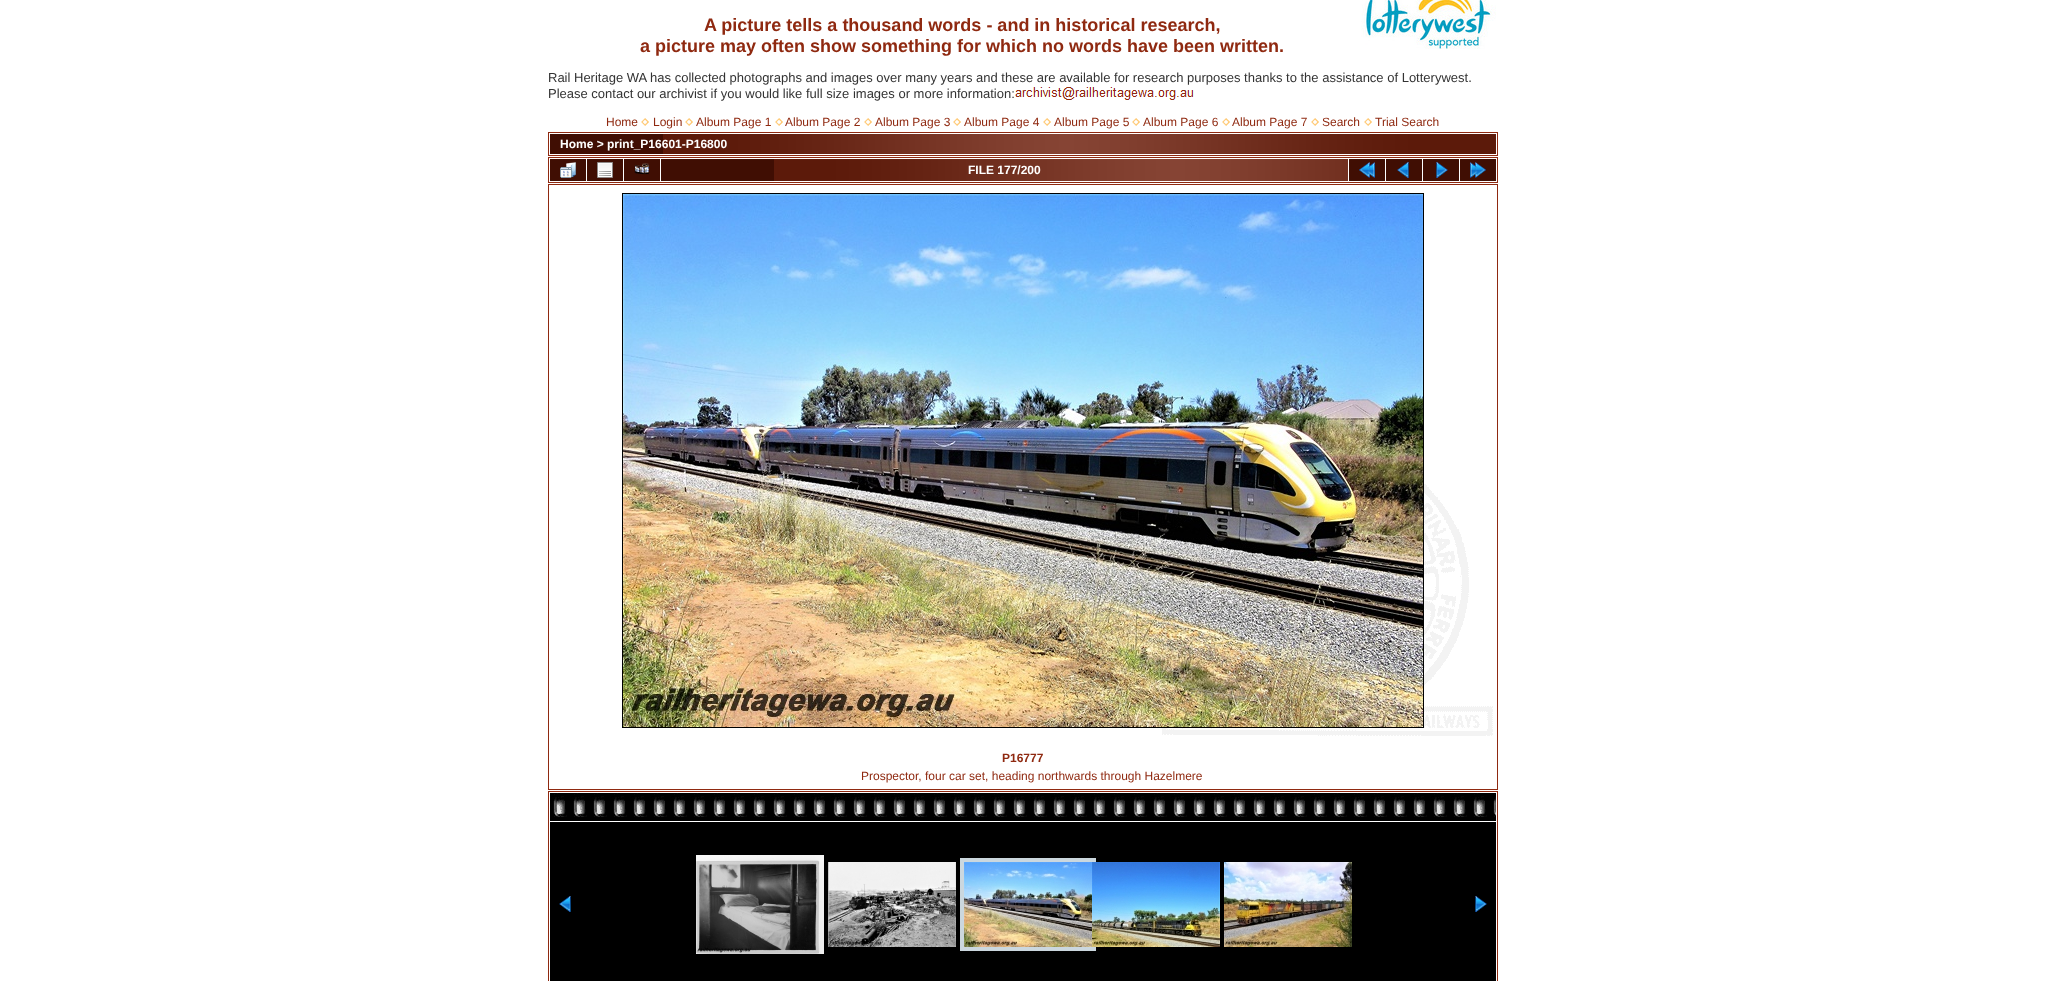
(async () => {
    const canvas = document.querySelector("canvas");
    canvas.width = 2045;
    canvas.height = 981;
    const context = canvas.getContext("2d");
    context.miterLimit = 4;
    context.fontKerning = "normal";
    function write(s, x, y, font, color) {
        context.font = font;
        context.fillStyle = color;
        context.fillText(s, x, y);
    }
    function block(x, y, w, h, color) {
        context.fillStyle = color;
        context.fillRect(x, y, w, h);
    }
    async function photo(src, x, y, w, h) {
        const img = new Image();
        img.src = src;
        await img.decode();
        context.drawImage(img, x, y, w, h);
    }

    block(0, 0, 2045, 981, "rgb(255, 255, 255)");
    await photo("media/1.png", 1162, 447, 331, 289);
    write("A picture tells a thousand words - and in historical research,", 704, 31, "bold 18px Liberation Sans", "rgb(143, 41, 16)");
    write("a picture may often show something for which no words have been written.", 640, 52, "bold 18px Liberation Sans", "rgb(143, 41, 16)");
    await photo("media/2.png", 1361, 0, 135, 49);
    write("Rail Heritage WA has collected photographs and images over many years and these are available for research purposes thanks to the assistance of Lotterywest.", 548, 82, "13px Liberation Sans", "rgb(51, 51, 51)");
    write("Please contact our archivist if you would like full size images or more information:", 548, 98, "13px Liberation Sans", "rgb(51, 51, 51)");
    await photo("media/3.png", 1015, 87, 179, 13);
    write("Home", 606, 126, "12px Liberation Sans", "rgb(143, 41, 16)");
    await photo("media/4.png", 641, 118, 8, 8);
    write("Login", 653, 126, "12px Liberation Sans", "rgb(143, 41, 16)");
    await photo("media/4.png", 685, 118, 8, 8);
    write("Album Page 1", 696, 126, "12px Liberation Sans", "rgb(143, 41, 16)");
    await photo("media/4.png", 775, 118, 8, 8);
    write("Album Page 2", 785, 126, "12px Liberation Sans", "rgb(143, 41, 16)");
    await photo("media/4.png", 864, 118, 8, 8);
    write("Album Page 3", 875, 126, "12px Liberation Sans", "rgb(143, 41, 16)");
    await photo("media/4.png", 953, 118, 8, 8);
    write("Album Page 4", 964, 126, "12px Liberation Sans", "rgb(143, 41, 16)");
    await photo("media/4.png", 1043, 118, 8, 8);
    write("Album Page 5", 1054, 126, "12px Liberation Sans", "rgb(143, 41, 16)");
    await photo("media/4.png", 1132, 118, 8, 8);
    write("Album Page 6", 1143, 126, "12px Liberation Sans", "rgb(143, 41, 16)");
    await photo("media/4.png", 1222, 118, 8, 8);
    write("Album Page 7", 1232, 126, "12px Liberation Sans", "rgb(143, 41, 16)");
    await photo("media/4.png", 1311, 118, 8, 8);
    write("Search", 1322, 126, "12px Liberation Sans", "rgb(143, 41, 16)");
    await photo("media/4.png", 1364, 118, 8, 8);
    write("Trial Search", 1375, 126, "12px Liberation Sans", "rgb(143, 41, 16)");
    context.strokeStyle = "rgb(143, 41, 16)";
    context.strokeRect(548.5, 132.5, 949, 23);
    await photo("media/5.png", 550, 134, 946, 20);
    write("Home > print_P16601-P16800", 560, 148, "bold 12px Liberation Sans", "rgb(255, 255, 255)");
    context.strokeRect(548.5, 157.5, 949, 25);
    block(550, 159, 36, 22, "rgb(64, 14, 3)");
    await photo("media/6.png", 560, 162, 16, 16);
    block(587, 159, 36, 22, "rgb(64, 14, 3)");
    await photo("media/7.png", 597, 162, 16, 16);
    block(624, 159, 36, 22, "rgb(64, 14, 3)");
    await photo("media/8.png", 634, 163, 16, 12);
    await photo("media/9.png", 661, 159, 687, 22);
    write("FILE 177/200", 968, 174, "bold 12px Liberation Sans", "rgb(255, 255, 255)");
    block(1349, 159, 36, 22, "rgb(64, 14, 3)");
    await photo("media/10.png", 1359, 162, 16, 16);
    block(1386, 159, 36, 22, "rgb(64, 14, 3)");
    await photo("media/11.png", 1397, 162, 12, 16);
    block(1423, 159, 36, 22, "rgb(64, 14, 3)");
    await photo("media/12.png", 1436, 162, 12, 16);
    block(1460, 159, 36, 22, "rgb(64, 14, 3)");
    await photo("media/13.png", 1470, 162, 16, 16);
    context.strokeRect(548.5, 184.5, 949, 605);
    context.strokeStyle = "rgb(0, 0, 0)";
    context.strokeRect(622.5, 193.5, 801, 534);
    await photo("media/14.png", 623, 194, 800, 533);
    write("P16777", 1002, 762, "bold 12px Liberation Sans", "rgb(143, 41, 16)");
    write("Prospector, four car set, heading northwards through Hazelmere", 861, 780, "12px Liberation Sans", "rgb(143, 41, 16)");
    context.strokeStyle = "rgb(143, 41, 16)";
    context.strokeRect(548.5, 791.5, 949, 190);
    block(550, 793, 946, 28, "rgb(0, 0, 0)");
    await photo("media/15.png", 553, 793, 943, 24);
    block(550, 822, 946, 159, "rgb(0, 0, 0)");
    await photo("media/16.png", 559, 896, 12, 16);
    await photo("media/17.png", 696, 855, 128, 99);
    await photo("media/18.png", 828, 862, 128, 85);
    context.strokeStyle = "rgb(203, 215, 222)";
    context.lineWidth = 4;
    context.strokeRect(962, 860, 132, 89);
    await photo("media/19.png", 964, 862, 128, 85);
    await photo("media/20.png", 1092, 862, 128, 85);
    await photo("media/21.png", 1224, 862, 128, 85);
    await photo("media/22.png", 1475, 896, 12, 16);
})();
